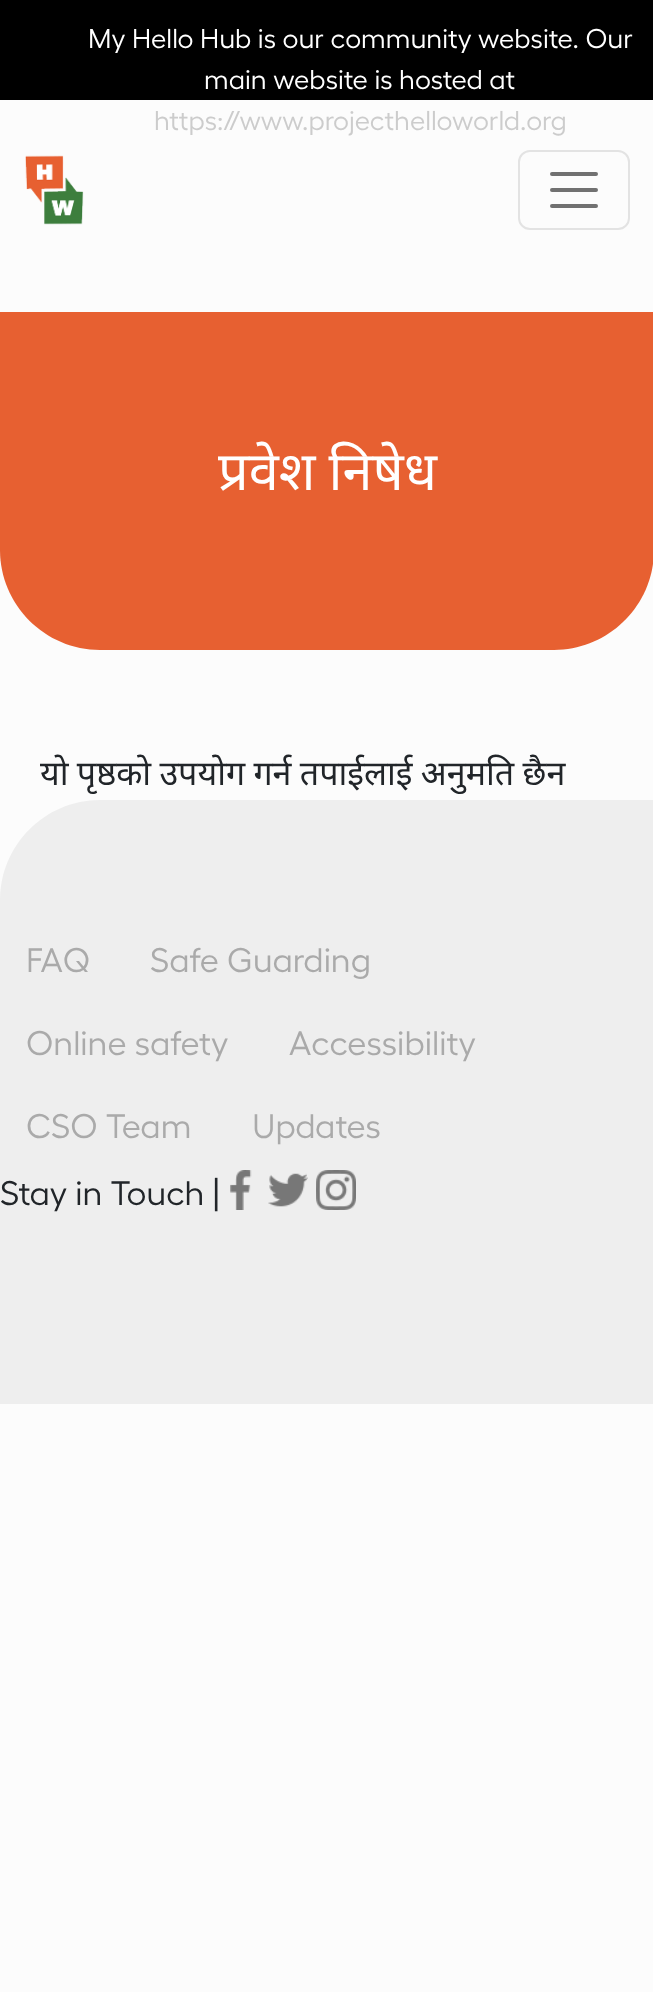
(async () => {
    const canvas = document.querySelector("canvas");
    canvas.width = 653;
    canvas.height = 1992;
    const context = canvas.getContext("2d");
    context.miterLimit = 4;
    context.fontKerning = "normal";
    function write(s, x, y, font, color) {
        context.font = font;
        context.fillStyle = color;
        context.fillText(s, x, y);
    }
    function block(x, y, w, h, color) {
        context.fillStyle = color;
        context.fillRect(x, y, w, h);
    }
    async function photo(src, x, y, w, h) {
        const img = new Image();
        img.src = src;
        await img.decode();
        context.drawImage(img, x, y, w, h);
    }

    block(0, 0, 653, 1992, "rgb(252, 252, 252)");
    block(0, 0, 653, 100, "rgb(0, 0, 0)");
    write("My Hello Hub is our community website. Our", 88, 48, "27.25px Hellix", "rgb(255, 255, 255)");
    write("main website is hosted at", 204, 89, "27.25px Hellix", "rgb(255, 255, 255)");
    write("https://www.projecthelloworld.org", 154, 130, "27.25px Hellix", "rgb(204, 204, 204)");
    await photo("media/1.png", 25, 155, 59, 70);
    context.beginPath();
    context.roundRect(519, 151, 110, 78, 11);
    context.strokeStyle = "rgb(227, 227, 227)";
    context.lineWidth = 2;
    context.stroke();
    context.beginPath();
    context.moveTo(552, 174);
    context.lineTo(596, 174);
    context.moveTo(552, 190);
    context.lineTo(596, 190);
    context.moveTo(552, 206);
    context.lineTo(596, 206);
    context.strokeStyle = "rgb(113, 113, 113)";
    context.lineWidth = 4;
    context.lineCap = "round";
    context.stroke();
    context.fillStyle = "rgb(231, 96, 49)";
    context.beginPath();
    context.moveTo(0, 312);
    context.lineTo(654, 312);
    context.lineTo(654, 550);
    context.bezierCurveTo(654, 605, 609, 650, 554, 650);
    context.lineTo(100, 650);
    context.bezierCurveTo(45, 650, 0, 605, 0, 550);
    context.closePath();
    context.fill();
    context.wordSpacing = "-1px";
    write("प्रवेश निषेध", 218, 490, "54px Noto Sans", "rgb(255, 255, 255)");
    context.wordSpacing = "-0.5px";
    write("यो पृष्ठको उपयोग गर्न तपाईलाई अनुमति छैन", 40, 785, "34px Noto Sans", "rgb(33, 37, 41)");
    context.fillStyle = "rgb(238, 238, 238)";
    context.beginPath();
    context.moveTo(100, 800);
    context.lineTo(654, 800);
    context.lineTo(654, 1404);
    context.lineTo(0, 1404);
    context.lineTo(0, 900);
    context.bezierCurveTo(0, 845, 45, 800, 100, 800);
    context.closePath();
    context.fill();
    context.wordSpacing = "0px";
    write("FAQ", 26, 972, "34px Hellix", "rgb(170, 170, 170)");
    write("Safe Guarding", 150, 972, "34px Hellix", "rgb(170, 170, 170)");
    write("Online safety", 26, 1055, "34px Hellix", "rgb(170, 170, 170)");
    write("Accessibility", 289, 1055, "34px Hellix", "rgb(170, 170, 170)");
    write("CSO Team", 26, 1138, "34px Hellix", "rgb(170, 170, 170)");
    write("Updates", 252, 1138, "34px Hellix", "rgb(170, 170, 170)");
    write("Stay in Touch |", 0, 1205, "34px Hellix", "rgb(33, 37, 41)");
    await photo("media/2.png", 230, 1170, 22, 40);
    await photo("media/3.png", 268, 1173, 40, 34);
    await photo("media/4.png", 316, 1170, 40, 40);
})();
